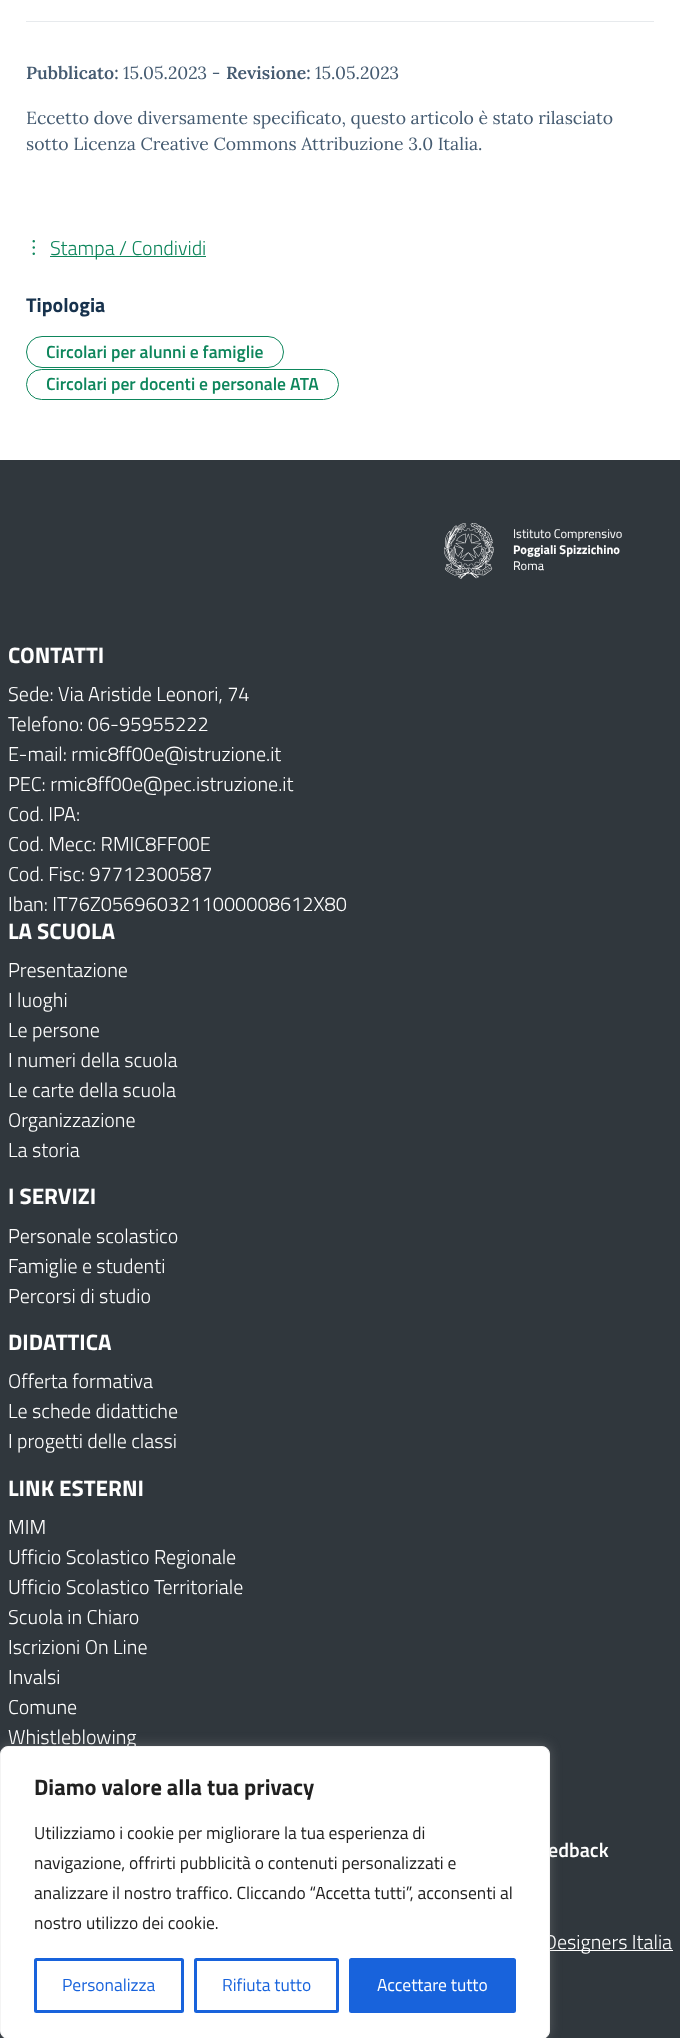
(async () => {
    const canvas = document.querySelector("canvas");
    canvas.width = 680;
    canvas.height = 2038;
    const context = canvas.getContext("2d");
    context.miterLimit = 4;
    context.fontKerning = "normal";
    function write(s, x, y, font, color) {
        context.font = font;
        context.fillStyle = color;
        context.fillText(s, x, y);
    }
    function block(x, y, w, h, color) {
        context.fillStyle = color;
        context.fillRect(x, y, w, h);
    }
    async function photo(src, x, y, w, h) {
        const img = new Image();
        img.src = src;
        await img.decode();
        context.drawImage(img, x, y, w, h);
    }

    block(0, 0, 680, 2038, "rgb(255, 255, 255)");
    block(26, 21, 628, 1, "rgb(231, 234, 237)");
    write("Pubblicato:", 26, 79, "600 17.6px Lora", "rgb(69, 91, 113)");
    write("15.05.2023 -", 123, 79, "17.6px Lora", "rgb(69, 91, 113)");
    write("Revisione:", 226, 79, "600 17.6px Lora", "rgb(69, 91, 113)");
    write("15.05.2023", 315, 79, "17.6px Lora", "rgb(69, 91, 113)");
    write("Eccetto dove diversamente specificato, questo articolo è stato rilasciato", 26, 124, "17.6px Lora", "rgb(69, 91, 113)");
    write("sotto Licenza Creative Commons Attribuzione 3.0 Italia.", 26, 150, "17.6px Lora", "rgb(69, 91, 113)");
    await photo("media/1.png", 32, 240, 3, 15);
    block(50, 256, 156, 1, "rgb(14, 134, 92)");
    write("Stampa / Condividi", 50, 255, "300 20px Titillium Web", "rgb(14, 134, 92)");
    write("Tipologia", 26, 312, "bold 20px Titillium Web", "rgb(23, 50, 77)");
    context.beginPath();
    context.roundRect(26.5, 336.5, 257, 31, 15.5);
    context.strokeStyle = "rgb(14, 134, 92)";
    context.stroke();
    write("Circolari per alunni e famiglie", 46, 358, "600 17.6px Titillium Web", "rgb(14, 134, 92)");
    context.beginPath();
    context.roundRect(26.5, 369.5, 312, 30, 15);
    context.stroke();
    write("Circolari per docenti e personale ATA", 46, 390, "600 17.6px Titillium Web", "rgb(14, 134, 92)");
    block(0, 460, 680, 1578, "rgb(48, 55, 61)");
    await photo("media/2.png", 444, 523, 50, 56);
    write("Istituto Comprensivo", 513, 538, "12.5px Titillium Web", "rgb(255, 255, 255)");
    write("Poggiali Spizzichino", 513, 554, "bold 12.5px Titillium Web", "rgb(255, 255, 255)");
    write("Roma", 513, 570, "12.5px Titillium Web", "rgb(255, 255, 255)");
    write("CONTATTI", 8, 663, "bold 22.5px Titillium Web", "rgb(255, 255, 255)");
    write("Sede: Via Aristide Leonori, 74", 8, 701, "300 20px Titillium Web", "rgb(255, 255, 255)");
    write("Telefono: 06-95955222", 8, 731, "300 20px Titillium Web", "rgb(255, 255, 255)");
    write("E-mail: rmic8ff00e@istruzione.it", 8, 761, "300 20px Titillium Web", "rgb(255, 255, 255)");
    write("PEC: rmic8ff00e@pec.istruzione.it", 8, 791, "300 20px Titillium Web", "rgb(255, 255, 255)");
    write("Cod. IPA:", 8, 821, "300 20px Titillium Web", "rgb(255, 255, 255)");
    write("Cod. Mecc: RMIC8FF00E", 8, 851, "300 20px Titillium Web", "rgb(255, 255, 255)");
    write("Cod. Fisc: 97712300587", 8, 881, "300 20px Titillium Web", "rgb(255, 255, 255)");
    write("Iban: IT76Z0569603211000008612X80", 8, 911, "300 20px Titillium Web", "rgb(255, 255, 255)");
    write("LA SCUOLA", 8, 939, "bold 22.5px Titillium Web", "rgb(255, 255, 255)");
    write("Presentazione", 8, 977, "300 20px Titillium Web", "rgb(255, 255, 255)");
    write("I luoghi", 8, 1007, "300 20px Titillium Web", "rgb(255, 255, 255)");
    write("Le persone", 8, 1037, "300 20px Titillium Web", "rgb(255, 255, 255)");
    write("I numeri della scuola", 8, 1067, "300 20px Titillium Web", "rgb(255, 255, 255)");
    write("Le carte della scuola", 8, 1097, "300 20px Titillium Web", "rgb(255, 255, 255)");
    write("Organizzazione", 8, 1127, "300 20px Titillium Web", "rgb(255, 255, 255)");
    write("La storia", 8, 1157, "300 20px Titillium Web", "rgb(255, 255, 255)");
    write("I SERVIZI", 8, 1204, "bold 22.5px Titillium Web", "rgb(255, 255, 255)");
    write("Personale scolastico", 8, 1243, "300 20px Titillium Web", "rgb(255, 255, 255)");
    write("Famiglie e studenti", 8, 1273, "300 20px Titillium Web", "rgb(255, 255, 255)");
    write("Percorsi di studio", 8, 1303, "300 20px Titillium Web", "rgb(255, 255, 255)");
    write("DIDATTICA", 8, 1350, "bold 22.5px Titillium Web", "rgb(255, 255, 255)");
    write("Offerta formativa", 8, 1388, "300 20px Titillium Web", "rgb(255, 255, 255)");
    write("Le schede didattiche", 8, 1418, "300 20px Titillium Web", "rgb(255, 255, 255)");
    write("I progetti delle classi", 8, 1448, "300 20px Titillium Web", "rgb(255, 255, 255)");
    write("LINK ESTERNI", 8, 1496, "bold 22.5px Titillium Web", "rgb(255, 255, 255)");
    write("MIM", 8, 1534, "300 20px Titillium Web", "rgb(255, 255, 255)");
    write("Ufficio Scolastico Regionale", 8, 1564, "300 20px Titillium Web", "rgb(255, 255, 255)");
    write("Ufficio Scolastico Territoriale", 8, 1594, "300 20px Titillium Web", "rgb(255, 255, 255)");
    write("Scuola in Chiaro", 8, 1624, "300 20px Titillium Web", "rgb(255, 255, 255)");
    write("Iscrizioni On Line", 8, 1654, "300 20px Titillium Web", "rgb(255, 255, 255)");
    write("Invalsi", 8, 1684, "300 20px Titillium Web", "rgb(255, 255, 255)");
    write("Comune", 8, 1714, "300 20px Titillium Web", "rgb(255, 255, 255)");
    write("Whistleblowing", 8, 1744, "300 20px Titillium Web", "rgb(255, 255, 255)");
    write("edback", 548, 1857, "600 20px Titillium Web", "rgb(255, 255, 255)");
    block(550, 1950, 123, 1, "rgb(255, 255, 255)");
    write("Designers Italia", 544, 1949, "300 20px Titillium Web", "rgb(255, 255, 255)");
    context.fillStyle = "rgba(172, 171, 171, 0.3)";
    context.filter = "blur(6px)";
    context.beginPath();
    context.roundRect(0, 1745, 550, 293, 8);
    context.fill();
    context.filter = "none";
    context.fillStyle = "rgb(255, 255, 255)";
    context.beginPath();
    context.roundRect(0.5, 1746.5, 549, 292, 7.5);
    context.fill();
    context.strokeStyle = "rgb(244, 244, 244)";
    context.stroke();
    write("Diamo valore alla tua privacy", 34, 1795, "bold 22.5px Titillium Web", "rgb(33, 33, 33)");
    write("Utilizziamo i cookie per migliorare la tua esperienza di", 34, 1839, "17.5px Titillium Web", "rgb(33, 33, 33)");
    write("navigazione, offrirti pubblicità o contenuti personalizzati e", 34, 1869, "17.5px Titillium Web", "rgb(33, 33, 33)");
    write("analizzare il nostro traffico. Cliccando “Accetta tutti”, acconsenti al", 34, 1899, "17.5px Titillium Web", "rgb(33, 33, 33)");
    write("nostro utilizzo dei cookie.", 34, 1929, "17.5px Titillium Web", "rgb(33, 33, 33)");
    context.beginPath();
    context.roundRect(35.5, 1959.5, 147, 52, 1);
    context.strokeStyle = "rgb(24, 99, 220)";
    context.lineWidth = 3;
    context.stroke();
    write("Personalizza", 62, 1991, "17.5px Titillium Web", "rgb(24, 99, 220)");
    context.beginPath();
    context.roundRect(195.5, 1959.5, 142, 52, 1);
    context.stroke();
    write("Rifiuta tutto", 222, 1991, "17.5px Titillium Web", "rgb(24, 99, 220)");
    context.beginPath();
    context.roundRect(350.5, 1959.5, 164, 52, 1);
    context.fill();
    context.stroke();
    write("Accettare tutto", 377, 1991, "17.5px Titillium Web", "rgb(255, 255, 255)");
})();
